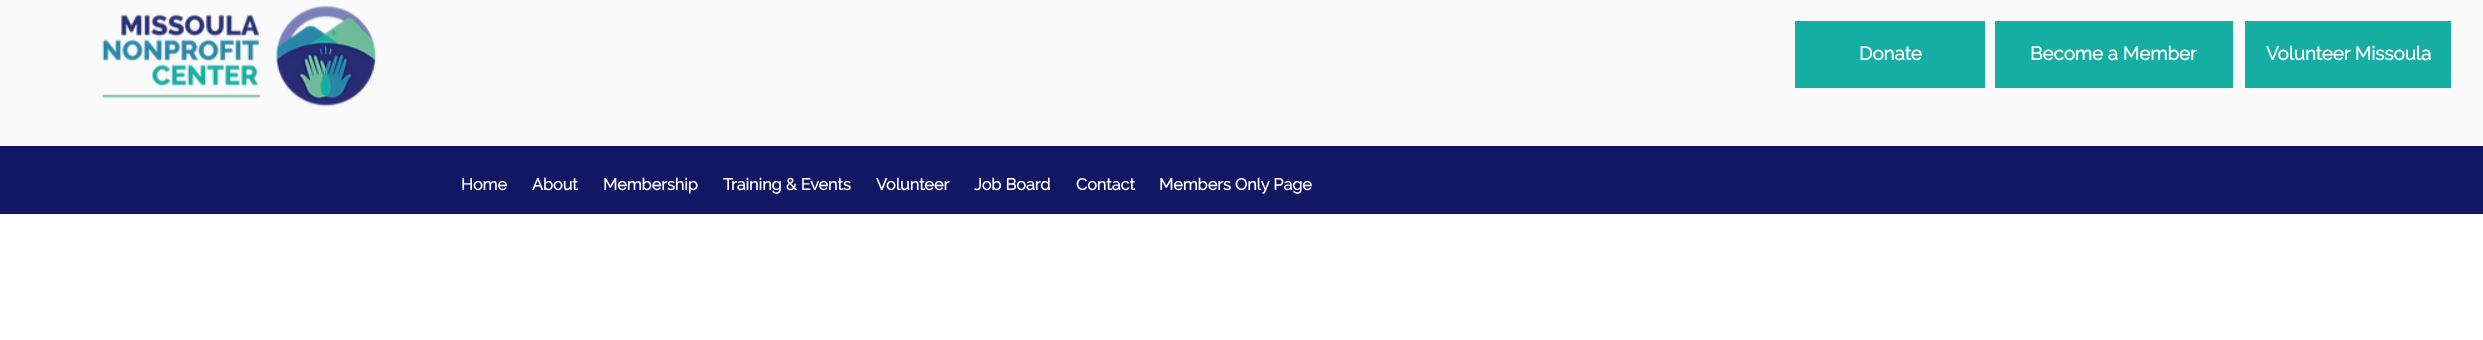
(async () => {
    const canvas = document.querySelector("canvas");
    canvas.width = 2483;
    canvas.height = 340;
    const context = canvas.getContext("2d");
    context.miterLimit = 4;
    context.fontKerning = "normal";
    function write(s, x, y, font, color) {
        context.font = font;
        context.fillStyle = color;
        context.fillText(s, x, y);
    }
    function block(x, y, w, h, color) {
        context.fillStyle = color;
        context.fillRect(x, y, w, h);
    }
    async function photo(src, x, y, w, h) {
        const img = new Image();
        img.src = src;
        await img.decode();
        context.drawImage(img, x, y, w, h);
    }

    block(0, 0, 2483, 340, "rgb(255, 255, 255)");
    block(0, 0, 2483, 215, "rgb(250, 250, 250)");
    await photo("media/1.png", 102, 5, 275, 102);
    block(1795, 21, 190, 67, "rgb(22, 173, 163)");
    write("Donate", 1859, 60, "bold 18.75px Raleway", "rgb(255, 255, 255)");
    block(1995, 21, 238, 67, "rgb(22, 173, 163)");
    write("Become a Member", 2030, 60, "bold 18.75px Raleway", "rgb(255, 255, 255)");
    block(2245, 21, 206, 67, "rgb(22, 173, 163)");
    write("Volunteer Missoula", 2266, 60, "bold 18.75px Raleway", "rgb(255, 255, 255)");
    block(0, 146, 2483, 68, "rgb(19, 23, 99)");
    write("Home", 461, 190, "bold 16.25px Raleway", "rgb(255, 255, 255)");
    write("About", 532, 190, "bold 16.25px Raleway", "rgb(255, 255, 255)");
    write("Membership", 603, 190, "bold 16.25px Raleway", "rgb(255, 255, 255)");
    write("Training & Events", 723, 190, "bold 16.25px Raleway", "rgb(255, 255, 255)");
    write("Volunteer", 876, 190, "bold 16.25px Raleway", "rgb(255, 255, 255)");
    write("Job Board", 974, 190, "bold 16.25px Raleway", "rgb(255, 255, 255)");
    write("Contact", 1076, 190, "bold 16.25px Raleway", "rgb(255, 255, 255)");
    write("Members Only Page", 1159, 190, "bold 16.25px Raleway", "rgb(255, 255, 255)");
})();
